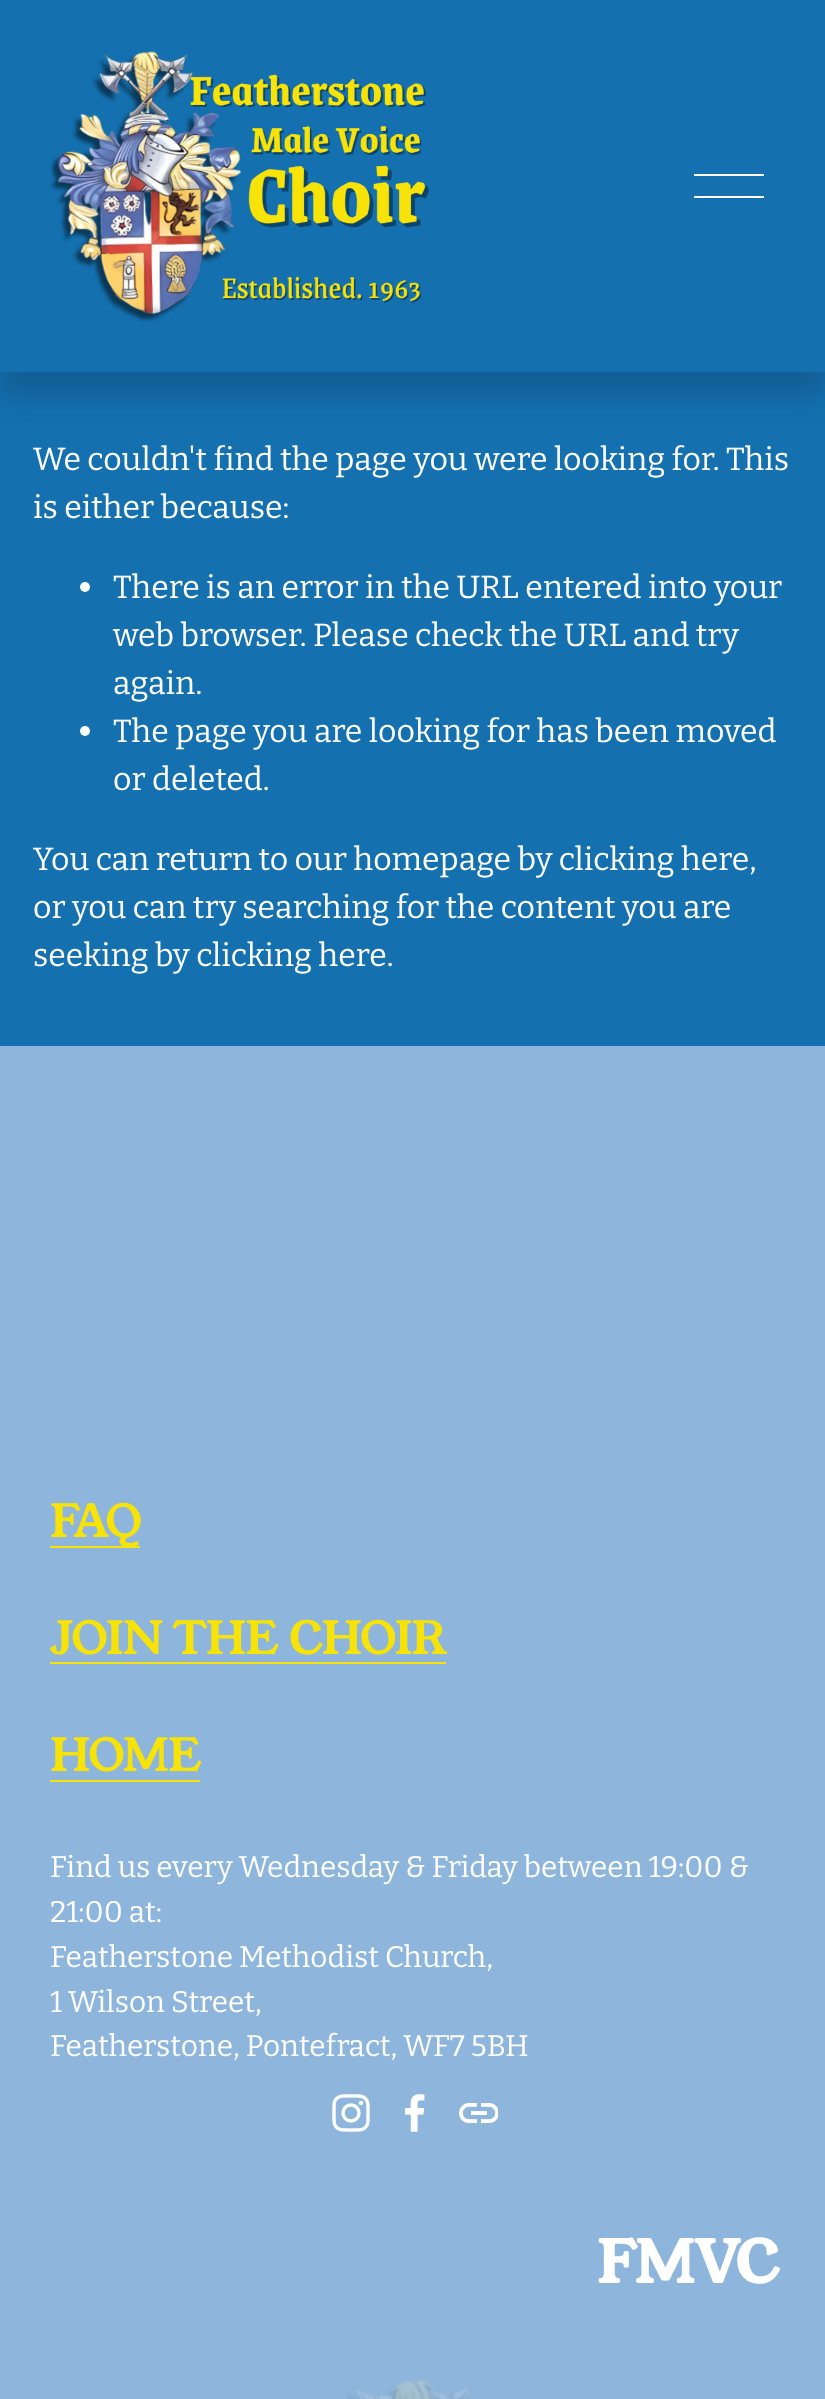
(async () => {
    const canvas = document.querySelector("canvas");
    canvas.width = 825;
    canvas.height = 2399;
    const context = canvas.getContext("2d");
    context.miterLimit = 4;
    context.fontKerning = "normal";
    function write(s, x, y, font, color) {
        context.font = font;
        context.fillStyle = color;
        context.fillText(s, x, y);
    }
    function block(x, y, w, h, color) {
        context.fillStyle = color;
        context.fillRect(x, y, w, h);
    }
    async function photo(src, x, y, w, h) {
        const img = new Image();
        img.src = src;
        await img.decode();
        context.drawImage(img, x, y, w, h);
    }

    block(0, 0, 825, 2399, "rgb(20, 112, 175)");
    context.save();
    context.beginPath();
    context.rect(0, 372, 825, 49);
    context.clip();
    context.fillStyle = "rgb(17, 95, 149)";
    context.filter = "blur(12px)";
    context.beginPath();
    context.rect(0, 24, 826, 372);
    context.fill();
    context.filter = "none";
    context.restore();
    await photo("media/1.png", 50, 51, 379, 271);
    block(694, 174, 70, 2, "rgb(255, 255, 255)");
    block(694, 196, 70, 2, "rgb(255, 255, 255)");
    write("We couldn't find the page you were looking for. This", 33, 470, "32px Bitter", "rgb(255, 255, 255)");
    write("is either because:", 33, 518, "32px Bitter", "rgb(255, 255, 255)");
    context.beginPath();
    context.arc(85, 587, 5, 0, Math.PI * 2);
    context.fill();
    write("There is an error in the URL entered into your", 113, 598, "32px Bitter", "rgb(255, 255, 255)");
    write("web browser. Please check the URL and try", 113, 646, "32px Bitter", "rgb(255, 255, 255)");
    write("again.", 113, 694, "32px Bitter", "rgb(255, 255, 255)");
    context.beginPath();
    context.arc(85, 731, 5, 0, Math.PI * 2);
    context.fill();
    write("The page you are looking for has been moved", 113, 742, "32px Bitter", "rgb(255, 255, 255)");
    write("or deleted.", 113, 790, "32px Bitter", "rgb(255, 255, 255)");
    write("You can return to our homepage by clicking here,", 33, 870, "32px Bitter", "rgb(255, 255, 255)");
    write("or you can try searching for the content you are", 33, 918, "32px Bitter", "rgb(255, 255, 255)");
    write("seeking by clicking here.", 33, 966, "32px Bitter", "rgb(255, 255, 255)");
    block(0, 1046, 825, 1353, "rgb(142, 182, 220)");
    block(50, 1546, 90, 2, "rgb(247, 227, 8)");
    context.letterSpacing = "-0.9px";
    write("FAQ", 50, 1537, "45px Young Serif", "rgb(247, 227, 8)");
    write("JOIN THE CHOIR", 50, 1654, "45px Young Serif", "rgb(247, 227, 8)");
    block(50, 1662, 396, 2, "rgb(247, 227, 8)");
    write("HOME", 50, 1771, "45px Young Serif", "rgb(247, 227, 8)");
    block(50, 1780, 150, 2, "rgb(247, 227, 8)");
    context.letterSpacing = "0px";
    write("Find us every Wednesday & Friday between 19:00 &", 50, 1877, "29.8px Bitter", "rgb(255, 255, 255)");
    write("21:00 at:", 50, 1922, "29.8px Bitter", "rgb(255, 255, 255)");
    write("Featherstone Methodist Church,", 50, 1967, "29.8px Bitter", "rgb(255, 255, 255)");
    write("1 Wilson Street,", 50, 2012, "29.8px Bitter", "rgb(255, 255, 255)");
    write("Featherstone, Pontefract, WF7 5BH", 50, 2056, "29.8px Bitter", "rgb(255, 255, 255)");
    await photo("media/2.png", 332, 2094, 38, 38);
    await photo("media/3.png", 405, 2094, 20, 38);
    await photo("media/4.png", 459, 2103, 39, 21);
    context.letterSpacing = "-1px";
    write("FMVC", 597, 2283, "bold 58px Young Serif", "rgb(255, 255, 255)");
    await photo("media/5.png", 346, 2379, 127, 20);
})();
